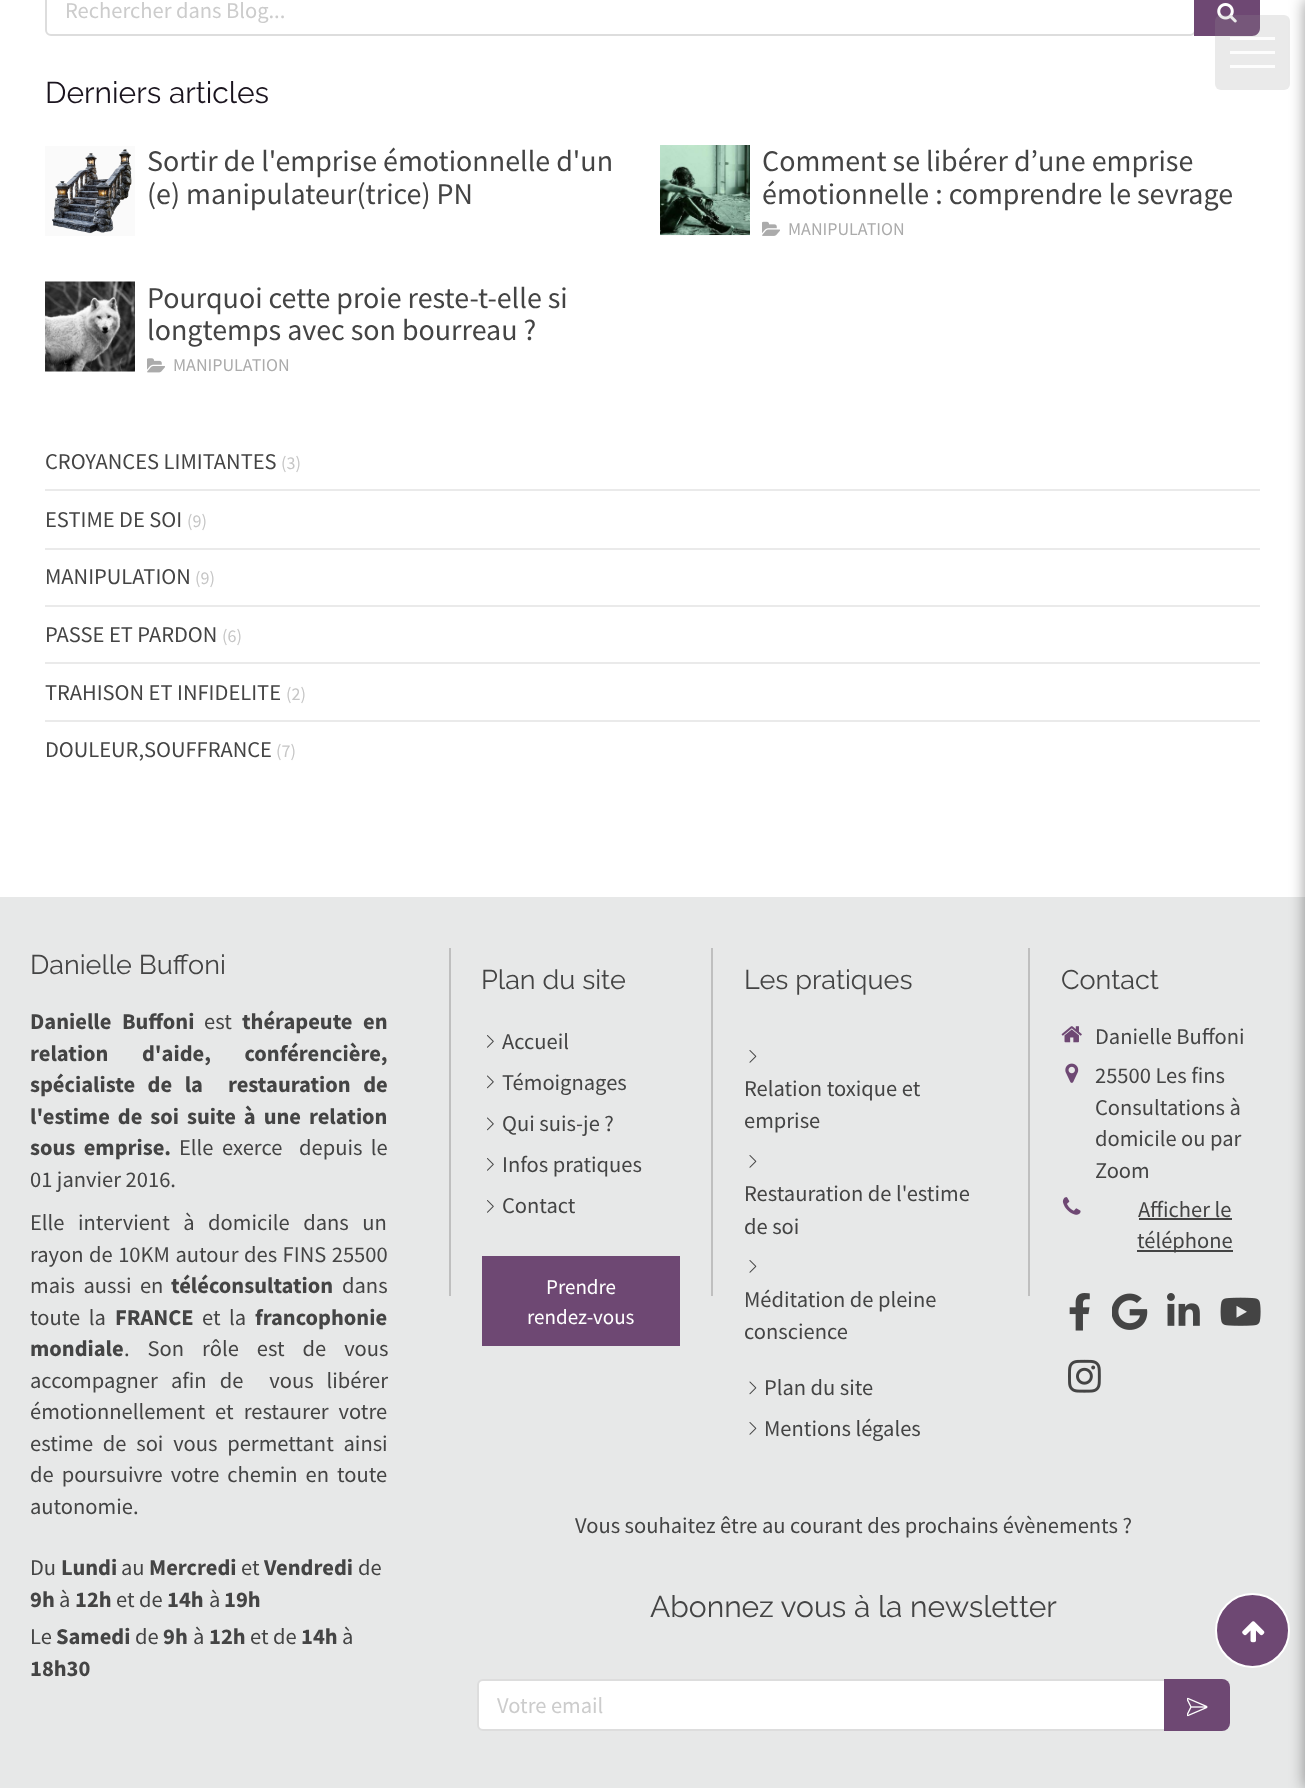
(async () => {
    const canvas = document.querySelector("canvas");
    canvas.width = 1305;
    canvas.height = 1788;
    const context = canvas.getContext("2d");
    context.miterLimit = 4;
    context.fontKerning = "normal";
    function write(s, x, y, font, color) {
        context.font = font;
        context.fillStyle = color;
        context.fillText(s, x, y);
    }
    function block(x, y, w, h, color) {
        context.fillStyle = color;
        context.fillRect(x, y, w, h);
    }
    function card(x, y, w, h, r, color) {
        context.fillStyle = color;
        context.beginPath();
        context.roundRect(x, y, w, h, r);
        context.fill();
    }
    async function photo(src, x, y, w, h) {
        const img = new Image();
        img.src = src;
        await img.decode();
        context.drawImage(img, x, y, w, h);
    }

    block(0, 0, 1305, 1788, "rgb(255, 255, 255)");
    context.beginPath();
    context.roundRect(46, -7, 1149, 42, 5);
    context.strokeStyle = "rgb(221, 221, 221)";
    context.lineWidth = 2;
    context.stroke();
    write("Rechercher dans Blog...", 65, 18, "22.5px Source Sans Pro", "rgb(204, 204, 204)");
    context.fillStyle = "rgb(110, 72, 115)";
    context.beginPath();
    context.moveTo(1194, -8);
    context.lineTo(1252, -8);
    context.bezierCurveTo(1256.5, -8, 1260, -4.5, 1260, 0);
    context.lineTo(1260, 28);
    context.bezierCurveTo(1260, 32.5, 1256.5, 36, 1252, 36);
    context.lineTo(1194, 36);
    context.closePath();
    context.fill();
    await photo("media/1.png", 1217, 3, 20, 20);
    write("Derniers articles", 45, 103, "30px Raleway", "rgb(26, 20, 30)");
    block(45, 146, 90, 90, "rgb(250, 250, 250)");
    await photo("media/2.png", 52, 149, 80, 85);
    write("Sortir de l'emprise émotionnelle d'un", 147, 171, "30px Source Sans Pro", "rgb(68, 68, 68)");
    write("(e) manipulateur(trice) PN", 147, 204, "30px Source Sans Pro", "rgb(68, 68, 68)");
    block(660, 235, 90, 1, "rgb(250, 250, 250)");
    await photo("media/3.png", 660, 145, 90, 90);
    write("Comment se libérer d’une emprise", 762, 171, "30px Source Sans Pro", "rgb(68, 68, 68)");
    write("émotionnelle : comprendre le sevrage", 762, 204, "30px Source Sans Pro", "rgb(68, 68, 68)");
    await photo("media/4.png", 762, 221, 18, 15);
    write("MANIPULATION", 788, 235, "18px Source Sans Pro", "rgb(171, 171, 171)");
    block(45, 371, 90, 1, "rgb(250, 250, 250)");
    await photo("media/5.png", 45, 281, 90, 91);
    write("Pourquoi cette proie reste-t-elle si", 147, 308, "30px Source Sans Pro", "rgb(68, 68, 68)");
    write("longtemps avec son bourreau ?", 147, 340, "30px Source Sans Pro", "rgb(68, 68, 68)");
    await photo("media/6.png", 147, 358, 18, 15);
    write("MANIPULATION", 173, 371, "18px Source Sans Pro", "rgb(171, 171, 171)");
    write("CROYANCES LIMITANTES", 45, 469, "22.5px Source Sans Pro", "rgb(68, 68, 68)");
    write("(3)", 281, 469, "18px Source Sans Pro", "rgb(198, 198, 198)");
    block(45, 489, 1215, 2, "rgb(234, 234, 234)");
    write("ESTIME DE SOI", 45, 527, "22.5px Source Sans Pro", "rgb(68, 68, 68)");
    write("(9)", 187, 527, "18px Source Sans Pro", "rgb(198, 198, 198)");
    block(45, 548, 1215, 2, "rgb(234, 234, 234)");
    write("MANIPULATION", 45, 584, "22.5px Source Sans Pro", "rgb(68, 68, 68)");
    write("(9)", 195, 584, "18px Source Sans Pro", "rgb(198, 198, 198)");
    block(45, 605, 1215, 2, "rgb(234, 234, 234)");
    write("PASSE ET PARDON", 45, 642, "22.5px Source Sans Pro", "rgb(68, 68, 68)");
    write("(6)", 222, 642, "18px Source Sans Pro", "rgb(198, 198, 198)");
    block(45, 662, 1215, 2, "rgb(234, 234, 234)");
    write("TRAHISON ET INFIDELITE", 45, 700, "22.5px Source Sans Pro", "rgb(68, 68, 68)");
    write("(2)", 286, 700, "18px Source Sans Pro", "rgb(198, 198, 198)");
    block(45, 720, 1215, 2, "rgb(234, 234, 234)");
    write("DOULEUR,SOUFFRANCE", 45, 757, "22.5px Source Sans Pro", "rgb(68, 68, 68)");
    write("(7)", 276, 757, "18px Source Sans Pro", "rgb(198, 198, 198)");
    card(1215, 15, 75, 75, 6, "rgba(150, 150, 150, 0.2)");
    block(1230, 37, 45, 3, "rgb(253, 253, 253)");
    block(1230, 51, 45, 3, "rgb(253, 253, 253)");
    block(1230, 65, 45, 3, "rgb(253, 253, 253)");
    block(0, 897, 1305, 891, "rgb(231, 232, 232)");
    write("Danielle Buffoni", 30, 974, "27px Raleway", "rgb(68, 68, 68)");
    context.wordSpacing = "6px";
    write("Danielle Buffoni", 30, 1029, "bold 22.5px Source Sans Pro", "rgb(68, 68, 68)");
    context.wordSpacing = "0px";
    write("est", 204, 1029, "22.5px Source Sans Pro", "rgb(68, 68, 68)");
    context.wordSpacing = "6px";
    write("thérapeute en", 242, 1029, "bold 22.5px Source Sans Pro", "rgb(68, 68, 68)");
    context.wordSpacing = "29px";
    write("relation d'aide, conférencière,", 30, 1061, "bold 22.5px Source Sans Pro", "rgb(68, 68, 68)");
    context.wordSpacing = "8px";
    write("spécialiste de la  restauration de", 30, 1092, "bold 22.5px Source Sans Pro", "rgb(68, 68, 68)");
    context.wordSpacing = "3.5px";
    write("l'estime de soi", 30, 1124, "bold 22.5px Source Sans Pro", "rgb(68, 68, 68)");
    write("suite à une relation", 187, 1124, "bold 22.5px Source Sans Pro", "rgb(68, 68, 68)");
    context.wordSpacing = "4px";
    write("sous emprise.", 30, 1155, "bold 22.5px Source Sans Pro", "rgb(68, 68, 68)");
    write("Elle exerce", 179, 1155, "22.5px Source Sans Pro", "rgb(68, 68, 68)");
    write("depuis le", 299, 1155, "22.5px Source Sans Pro", "rgb(68, 68, 68)");
    context.wordSpacing = "0px";
    write("01 janvier 2016.", 30, 1187, "22.5px Source Sans Pro", "rgb(68, 68, 68)");
    context.wordSpacing = "9px";
    write("Elle intervient à domicile dans un", 30, 1230, "22.5px Source Sans Pro", "rgb(68, 68, 68)");
    context.wordSpacing = "1px";
    write("rayon de 10KM autour des FINS 25500", 30, 1262, "22.5px Source Sans Pro", "rgb(68, 68, 68)");
    context.wordSpacing = "4px";
    write("mais aussi en", 30, 1293, "22.5px Source Sans Pro", "rgb(68, 68, 68)");
    context.wordSpacing = "0px";
    write("téléconsultation", 171, 1293, "bold 22.5px Source Sans Pro", "rgb(68, 68, 68)");
    write("dans", 342, 1293, "22.5px Source Sans Pro", "rgb(68, 68, 68)");
    context.wordSpacing = "4px";
    write("toute la", 30, 1325, "22.5px Source Sans Pro", "rgb(68, 68, 68)");
    context.wordSpacing = "0px";
    write("FRANCE", 115, 1325, "bold 22.5px Source Sans Pro", "rgb(68, 68, 68)");
    context.wordSpacing = "4px";
    write("et la", 202, 1325, "22.5px Source Sans Pro", "rgb(68, 68, 68)");
    context.wordSpacing = "0px";
    write("francophonie", 255, 1325, "bold 22.5px Source Sans Pro", "rgb(68, 68, 68)");
    write("mondiale", 30, 1356, "bold 22.5px Source Sans Pro", "rgb(68, 68, 68)");
    context.wordSpacing = "13.5px";
    write(". Son rôle est de vous", 124, 1356, "22.5px Source Sans Pro", "rgb(68, 68, 68)");
    context.wordSpacing = "8.5px";
    write("accompagner afin de  vous libérer", 30, 1388, "22.5px Source Sans Pro", "rgb(68, 68, 68)");
    context.wordSpacing = "5.5px";
    write("émotionnellement et restaurer votre", 30, 1419, "22.5px Source Sans Pro", "rgb(68, 68, 68)");
    context.wordSpacing = "5.25px";
    write("estime de soi vous permettant ainsi", 30, 1451, "22.5px Source Sans Pro", "rgb(68, 68, 68)");
    context.wordSpacing = "3.5px";
    write("de poursuivre votre chemin en toute", 30, 1482, "22.5px Source Sans Pro", "rgb(68, 68, 68)");
    context.wordSpacing = "0px";
    write("autonomie.", 30, 1514, "22.5px Source Sans Pro", "rgb(68, 68, 68)");
    write("Du", 30, 1575, "22.5px Source Sans Pro", "rgb(68, 68, 68)");
    write("Lundi", 61, 1575, "bold 22.5px Source Sans Pro", "rgb(68, 68, 68)");
    write("au", 121, 1575, "22.5px Source Sans Pro", "rgb(68, 68, 68)");
    write("Mercredi", 149, 1575, "bold 22.5px Source Sans Pro", "rgb(68, 68, 68)");
    write("et", 241, 1575, "22.5px Source Sans Pro", "rgb(68, 68, 68)");
    write("Vendredi", 264, 1575, "bold 22.5px Source Sans Pro", "rgb(68, 68, 68)");
    write("de", 358, 1575, "22.5px Source Sans Pro", "rgb(68, 68, 68)");
    write("9h", 30, 1607, "bold 22.5px Source Sans Pro", "rgb(68, 68, 68)");
    write("à", 59, 1607, "22.5px Source Sans Pro", "rgb(68, 68, 68)");
    write("12h", 75, 1607, "bold 22.5px Source Sans Pro", "rgb(68, 68, 68)");
    write("et de", 116, 1607, "22.5px Source Sans Pro", "rgb(68, 68, 68)");
    write("14h", 167, 1607, "bold 22.5px Source Sans Pro", "rgb(68, 68, 68)");
    write("à", 209, 1607, "22.5px Source Sans Pro", "rgb(68, 68, 68)");
    write("19h", 224, 1607, "bold 22.5px Source Sans Pro", "rgb(68, 68, 68)");
    write("Le", 30, 1644, "22.5px Source Sans Pro", "rgb(68, 68, 68)");
    write("Samedi", 56, 1644, "bold 22.5px Source Sans Pro", "rgb(68, 68, 68)");
    write("de", 135, 1644, "22.5px Source Sans Pro", "rgb(68, 68, 68)");
    write("9h", 163, 1644, "bold 22.5px Source Sans Pro", "rgb(68, 68, 68)");
    write("à", 193, 1644, "22.5px Source Sans Pro", "rgb(68, 68, 68)");
    write("12h", 209, 1644, "bold 22.5px Source Sans Pro", "rgb(68, 68, 68)");
    write("et de", 250, 1644, "22.5px Source Sans Pro", "rgb(68, 68, 68)");
    write("14h", 301, 1644, "bold 22.5px Source Sans Pro", "rgb(68, 68, 68)");
    write("à", 342, 1644, "22.5px Source Sans Pro", "rgb(68, 68, 68)");
    write("18h30", 30, 1676, "bold 22.5px Source Sans Pro", "rgb(68, 68, 68)");
    block(449, 948, 2, 348, "rgb(191, 191, 191)");
    write("Plan du site", 481, 989, "27px Raleway", "rgb(68, 68, 68)");
    await photo("media/7.png", 487, 1035, 7, 13);
    write("Accueil", 502, 1049, "22.5px Source Sans Pro", "rgb(68, 68, 68)");
    await photo("media/8.png", 487, 1075, 7, 14);
    write("Témoignages", 502, 1090, "22.5px Source Sans Pro", "rgb(68, 68, 68)");
    await photo("media/8.png", 487, 1117, 7, 14);
    write("Qui suis-je ?", 502, 1131, "22.5px Source Sans Pro", "rgb(68, 68, 68)");
    await photo("media/7.png", 487, 1158, 7, 13);
    write("Infos pratiques", 502, 1172, "22.5px Source Sans Pro", "rgb(68, 68, 68)");
    await photo("media/7.png", 487, 1200, 7, 13);
    write("Contact", 502, 1213, "22.5px Source Sans Pro", "rgb(68, 68, 68)");
    block(482, 1256, 198, 90, "rgb(110, 72, 115)");
    write("Prendre", 546, 1294, "21px Source Sans Pro", "rgb(255, 255, 255)");
    write("rendez-vous", 527, 1324, "21px Source Sans Pro", "rgb(255, 255, 255)");
    block(711, 948, 2, 348, "rgb(191, 191, 191)");
    write("Les pratiques", 744, 989, "27px Raleway", "rgb(68, 68, 68)");
    await photo("media/9.png", 749, 1050, 8, 13);
    write("Relation toxique et", 744, 1096, "22.5px Source Sans Pro", "rgb(68, 68, 68)");
    write("emprise", 744, 1128, "22.5px Source Sans Pro", "rgb(68, 68, 68)");
    await photo("media/9.png", 749, 1155, 8, 13);
    write("Restauration de l'estime", 744, 1201, "22.5px Source Sans Pro", "rgb(68, 68, 68)");
    write("de soi", 744, 1234, "22.5px Source Sans Pro", "rgb(68, 68, 68)");
    await photo("media/9.png", 749, 1260, 8, 13);
    write("Méditation de pleine", 744, 1307, "22.5px Source Sans Pro", "rgb(68, 68, 68)");
    write("conscience", 744, 1339, "22.5px Source Sans Pro", "rgb(68, 68, 68)");
    await photo("media/10.png", 749, 1381, 8, 14);
    write("Plan du site", 764, 1395, "22.5px Source Sans Pro", "rgb(68, 68, 68)");
    await photo("media/9.png", 749, 1422, 8, 13);
    write("Mentions légales", 764, 1436, "22.5px Source Sans Pro", "rgb(68, 68, 68)");
    block(1028, 948, 2, 348, "rgb(191, 191, 191)");
    write("Contact", 1061, 989, "27px Raleway", "rgb(68, 68, 68)");
    await photo("media/11.png", 1061, 1026, 21, 17);
    write("Danielle Buffoni", 1095, 1044, "22.5px Source Sans Pro", "rgb(68, 68, 68)");
    await photo("media/12.png", 1065, 1063, 14, 20);
    write("25500 Les fins", 1095, 1083, "22.5px Source Sans Pro", "rgb(68, 68, 68)");
    write("Consultations à", 1095, 1115, "22.5px Source Sans Pro", "rgb(68, 68, 68)");
    write("domicile ou par", 1095, 1146, "22.5px Source Sans Pro", "rgb(68, 68, 68)");
    write("Zoom", 1095, 1178, "22.5px Source Sans Pro", "rgb(68, 68, 68)");
    await photo("media/13.png", 1062, 1197, 19, 18);
    write("Afficher le", 1138, 1217, "22.5px Source Sans Pro", "rgb(68, 68, 68)");
    block(1139, 1218, 93, 2, "rgb(68, 68, 68)");
    block(1137, 1250, 96, 2, "rgb(68, 68, 68)");
    write("téléphone", 1137, 1248, "22.5px Source Sans Pro", "rgb(68, 68, 68)");
    await photo("media/14.png", 1069, 1293, 21, 38);
    await photo("media/15.png", 1112, 1293, 36, 37);
    await photo("media/16.png", 1167, 1293, 33, 33);
    await photo("media/17.png", 1220, 1297, 41, 29);
    await photo("media/18.png", 1068, 1359, 33, 34);
    write("Vous souhaitez être au courant des prochains évènements ?", 575, 1533, "22.5px Source Sans Pro", "rgb(68, 68, 68)");
    write("Abonnez vous à la newsletter", 650, 1617, "30px Raleway", "rgb(68, 68, 68)");
    context.fillStyle = "rgb(255, 255, 255)";
    context.beginPath();
    context.roundRect(478, 1680, 687, 50, [5, 0, 0, 5]);
    context.fill();
    context.stroke();
    write("Votre email", 497, 1713, "22.5px Source Sans Pro", "rgb(204, 204, 204)");
    context.fillStyle = "rgb(110, 72, 115)";
    context.beginPath();
    context.roundRect(1164, 1679, 66, 52, [0, 8, 8, 0]);
    context.fill();
    await photo("media/19.png", 1187, 1697, 21, 20);
    context.beginPath();
    context.arc(1252.5, 1630.5, 36.5, 0, Math.PI * 2);
    context.fill();
    context.strokeStyle = "rgb(255, 255, 255)";
    context.stroke();
    await photo("media/20.png", 1242, 1621, 23, 22);
    context.fillStyle = "rgba(0, 0, 0, 0.4)";
    context.filter = "blur(7.5px)";
    context.beginPath();
    context.rect(1305, 0, 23, 1788);
    context.fill();
    context.filter = "none";
})();
